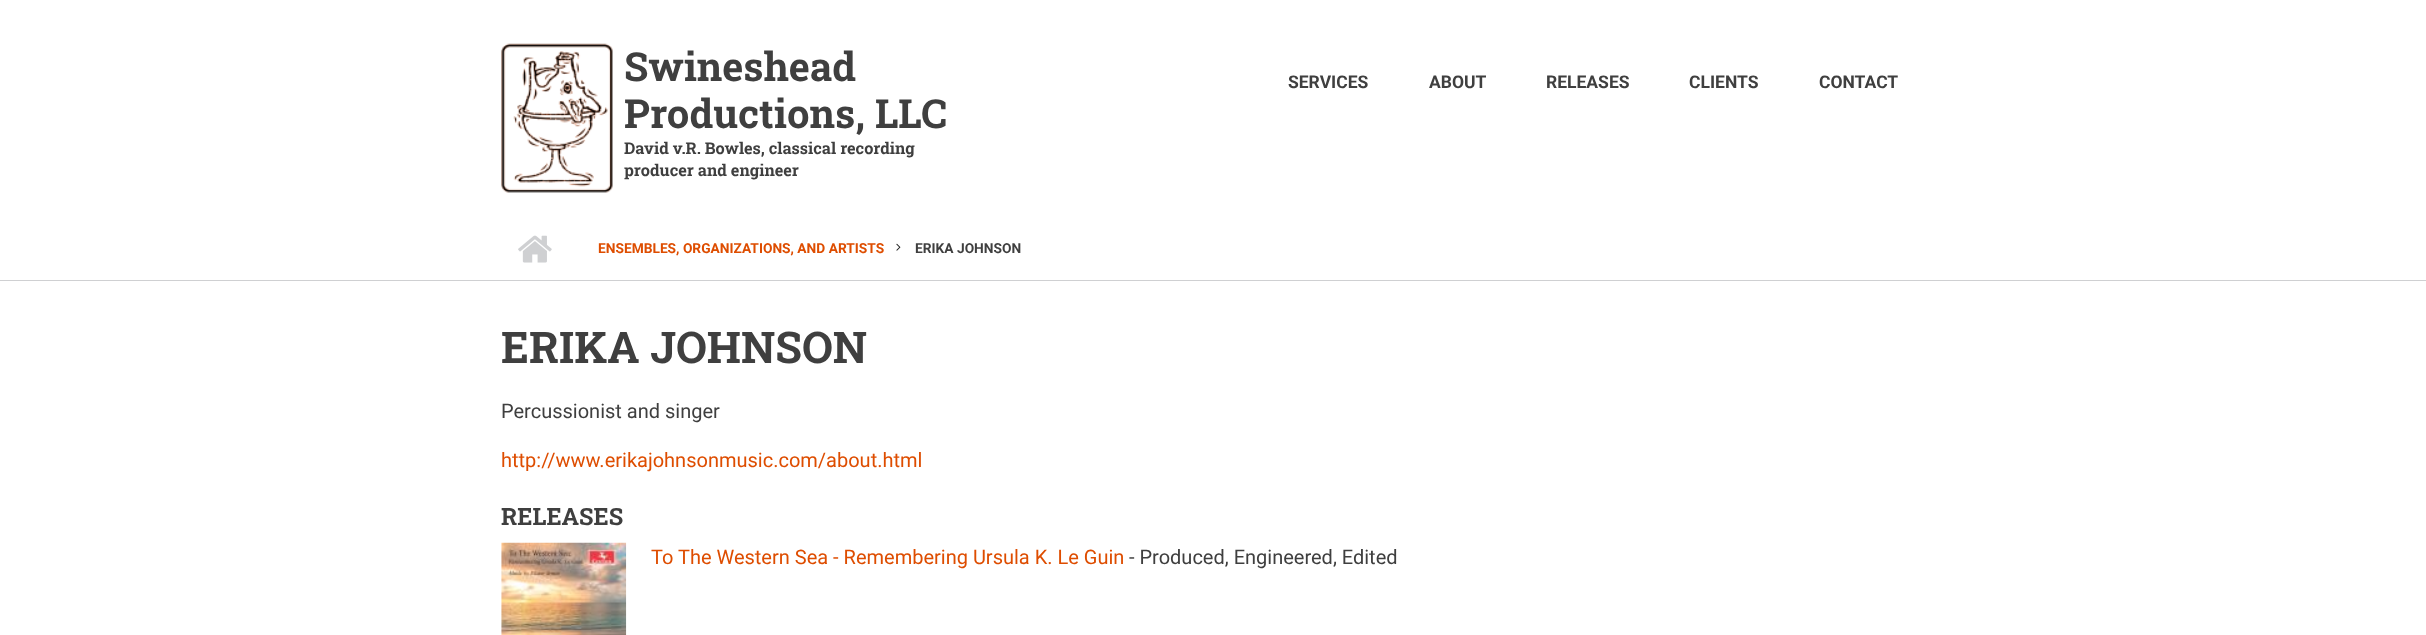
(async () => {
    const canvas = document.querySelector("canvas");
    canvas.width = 2426;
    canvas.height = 635;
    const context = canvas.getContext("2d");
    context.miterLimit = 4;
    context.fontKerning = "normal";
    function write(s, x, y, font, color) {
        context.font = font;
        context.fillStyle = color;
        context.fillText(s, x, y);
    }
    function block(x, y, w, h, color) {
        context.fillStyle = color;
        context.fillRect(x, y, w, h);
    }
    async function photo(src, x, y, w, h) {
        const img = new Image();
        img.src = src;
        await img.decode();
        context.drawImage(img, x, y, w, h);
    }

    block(0, 0, 2426, 635, "rgb(255, 255, 255)");
    await photo("media/1.png", 501, 43, 112, 150);
    write("Swineshead", 624, 81, "bold 40px Roboto Slab", "rgb(63, 63, 63)");
    write("Productions, LLC", 624, 128, "bold 40px Roboto Slab", "rgb(63, 63, 63)");
    write("David v.R. Bowles, classical recording", 624, 154, "bold 16.25px Roboto Slab", "rgb(63, 63, 63)");
    write("producer and engineer", 624, 176, "bold 16.25px Roboto Slab", "rgb(63, 63, 63)");
    write("SERVICES", 1288, 88, "bold 17.5px Roboto", "rgb(63, 63, 63)");
    write("ABOUT", 1429, 88, "bold 17.5px Roboto", "rgb(63, 63, 63)");
    write("RELEASES", 1546, 88, "bold 17.5px Roboto", "rgb(63, 63, 63)");
    write("CLIENTS", 1689, 88, "bold 17.5px Roboto", "rgb(63, 63, 63)");
    write("CONTACT", 1819, 88, "bold 17.5px Roboto", "rgb(63, 63, 63)");
    block(0, 280, 2426, 1, "rgb(207, 208, 210)");
    await photo("media/2.png", 518, 235, 34, 28);
    write("ENSEMBLES, ORGANIZATIONS, AND ARTISTS", 598, 253, "bold 13.75px Roboto", "rgb(222, 77, 0)");
    await photo("media/3.png", 896, 243, 5, 8);
    write("ERIKA JOHNSON", 915, 253, "bold 13.75px Roboto", "rgb(63, 63, 63)");
    write("ERIKA JOHNSON", 501, 363, "bold 43.75px Roboto Slab", "rgb(63, 63, 63)");
    write("Percussionist and singer", 501, 418, "20px Roboto", "rgb(63, 63, 63)");
    write("http://www.erikajohnsonmusic.com/about.html", 501, 467, "20px Roboto", "rgb(222, 77, 0)");
    write("RELEASES", 501, 525, "bold 23.75px Roboto Slab", "rgb(63, 63, 63)");
    await photo("media/4.png", 501, 542, 126, 93);
    write("To The Western Sea - Remembering Ursula K. Le Guin", 651, 564, "20px Roboto", "rgb(222, 77, 0)");
    write("- Produced, Engineered, Edited", 1129, 564, "20px Roboto", "rgb(63, 63, 63)");
})();
